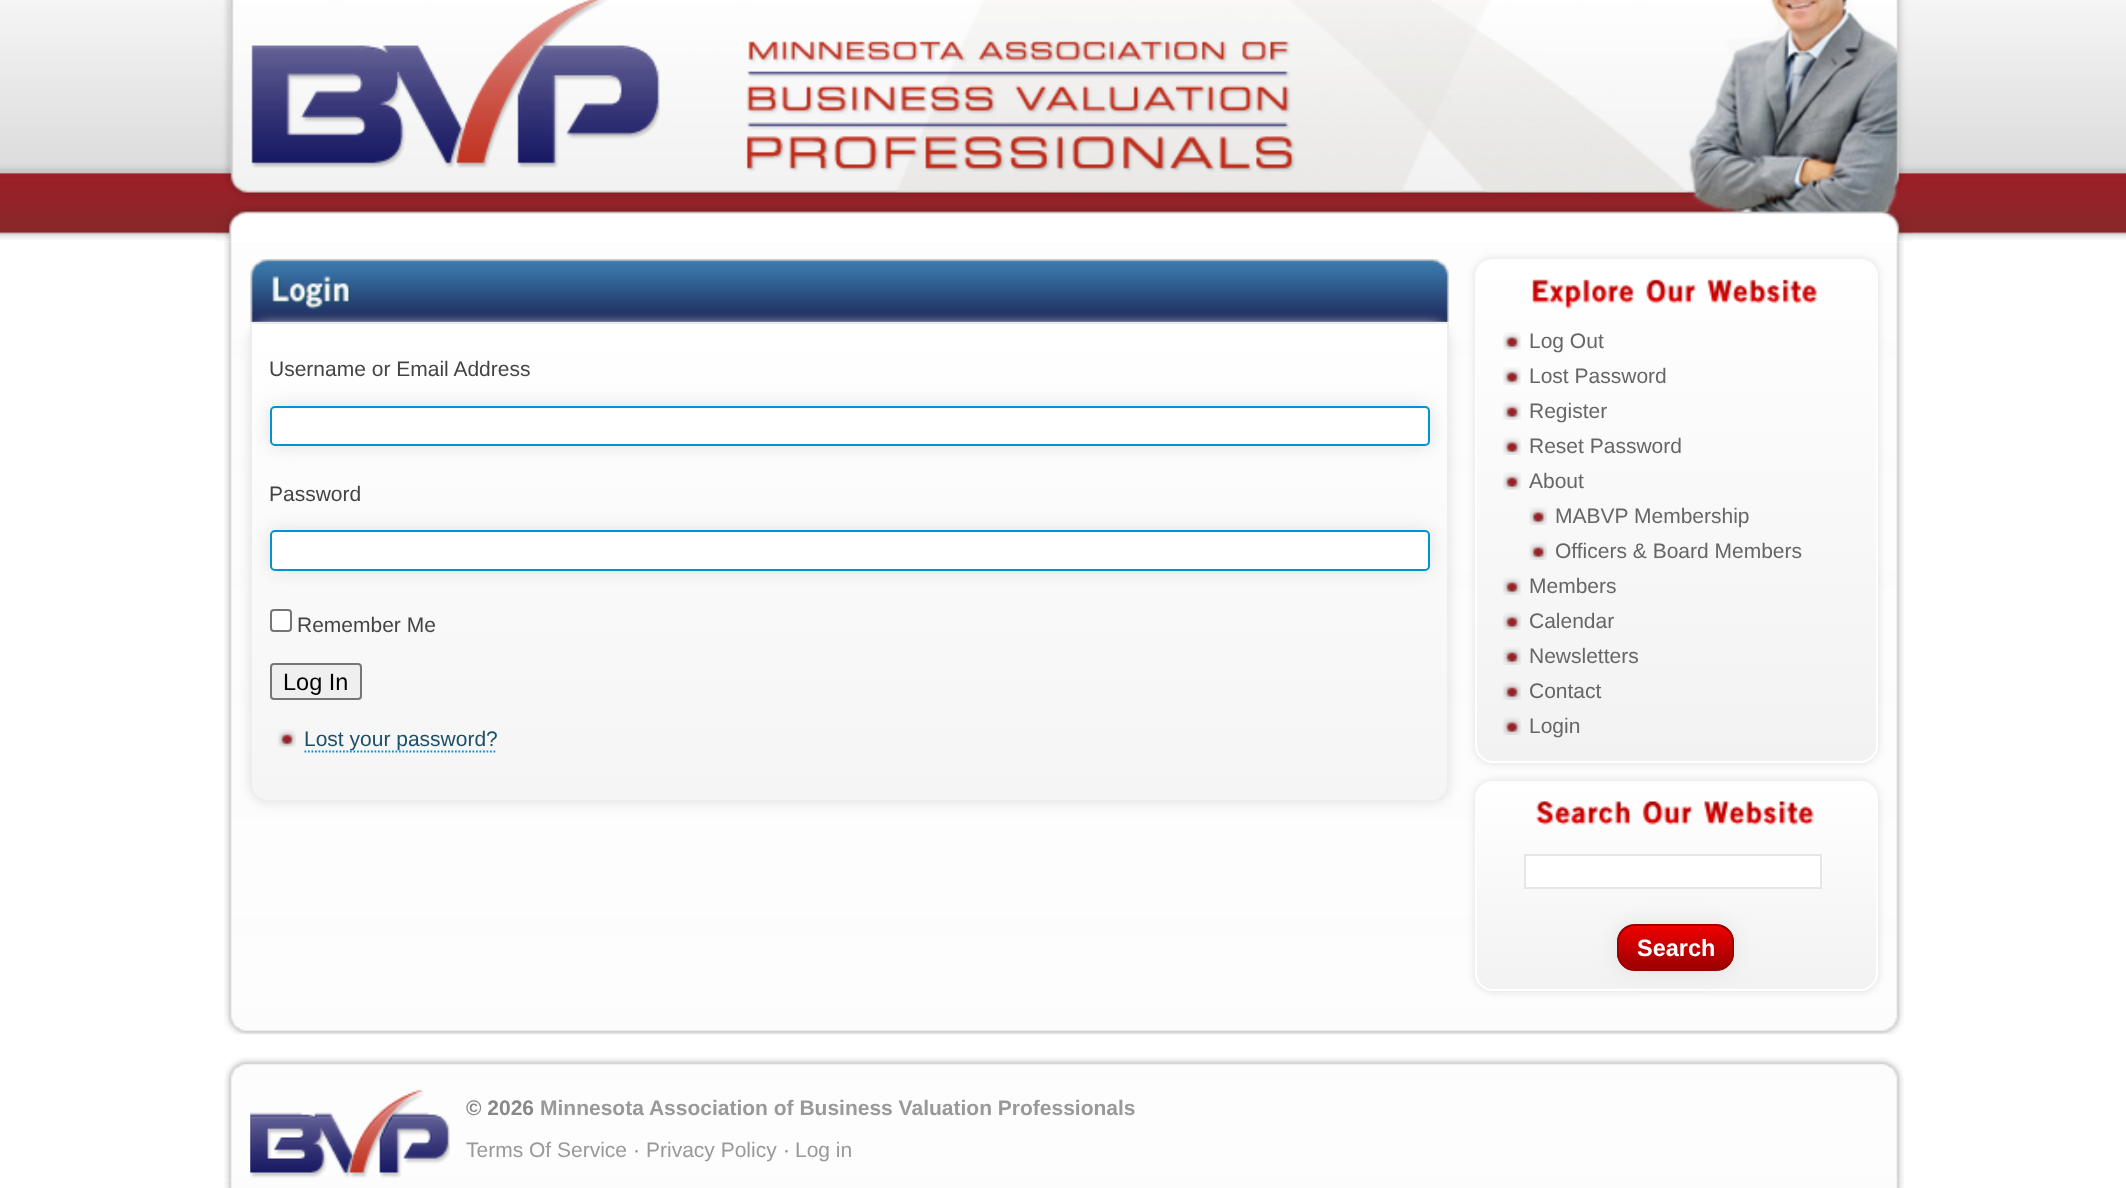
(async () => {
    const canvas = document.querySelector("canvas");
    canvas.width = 2126;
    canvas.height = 1188;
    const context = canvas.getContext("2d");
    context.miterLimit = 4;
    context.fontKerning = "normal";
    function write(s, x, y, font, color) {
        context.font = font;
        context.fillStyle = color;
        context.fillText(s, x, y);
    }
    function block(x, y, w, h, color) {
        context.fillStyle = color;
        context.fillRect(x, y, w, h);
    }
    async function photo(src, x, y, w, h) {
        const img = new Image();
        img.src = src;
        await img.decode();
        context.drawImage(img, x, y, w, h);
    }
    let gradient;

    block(0, 0, 2126, 1188, "rgb(255, 255, 255)");
    await photo("media/1.png", 0, 0, 2126, 240);
    await photo("media/4.png", 224, 241, 1680, 767);
    await photo("media/2.png", 215, 0, 1698, 242);
    await photo("media/3.png", 251, 0, 409, 168);
    await photo("media/5.png", 250, 259, 1199, 63);
    block(250, 322, 1199, 2, "rgb(241, 241, 241)");
    context.fillStyle = "rgb(224, 224, 224)";
    context.filter = "blur(6px)";
    context.beginPath();
    context.roundRect(250, 324, 1199, 478, 18);
    context.fill();
    context.filter = "none";
    await photo("media/6.png", 272, 276, 79, 34);
    context.save();
    context.beginPath();
    context.roundRect(250, 324, 1199, 478, [0, 0, 18, 18]);
    context.clip();
    gradient = context.createLinearGradient(252, 324, 252, 800);
    gradient.addColorStop(0, "rgb(255, 255, 255)");
    gradient.addColorStop(1, "rgb(245, 245, 245)");
    context.fillStyle = gradient;
    context.fillRect(250, 324, 1199, 476);
    context.restore();
    context.fillStyle = "rgb(238, 238, 238)";
    context.beginPath();
    context.moveTo(250, 324);
    context.lineTo(1449, 324);
    context.lineTo(1449, 784);
    context.bezierCurveTo(1449, 794, 1441, 802, 1432, 802);
    context.lineTo(268, 802);
    context.bezierCurveTo(258, 802, 250, 794, 250, 784);
    context.closePath();
    context.moveTo(252, 324);
    context.lineTo(1447, 324);
    context.lineTo(1447, 784);
    context.bezierCurveTo(1447, 793, 1440, 800, 1432, 800);
    context.lineTo(268, 800);
    context.bezierCurveTo(259, 800, 252, 793, 252, 784);
    context.closePath();
    context.fill("evenodd");
    write("Username or Email Address", 269, 376, "21px Liberation Sans", "rgb(68, 68, 68)");
    context.fillStyle = "rgb(224, 224, 224)";
    context.filter = "blur(9px)";
    context.beginPath();
    context.roundRect(270, 406, 1160, 40, 5);
    context.fill();
    context.filter = "none";
    context.fillStyle = "rgb(255, 255, 255)";
    context.beginPath();
    context.roundRect(271, 407, 1158, 38, 4);
    context.fill();
    context.strokeStyle = "rgb(0, 147, 211)";
    context.lineWidth = 2;
    context.stroke();
    write("Password", 269, 501, "21px Liberation Sans", "rgb(68, 68, 68)");
    context.fillStyle = "rgb(224, 224, 224)";
    context.filter = "blur(9px)";
    context.beginPath();
    context.roundRect(270, 530, 1160, 41, 5);
    context.fill();
    context.filter = "none";
    context.fillStyle = "rgb(255, 255, 255)";
    context.beginPath();
    context.roundRect(271, 531, 1158, 39, 4);
    context.fill();
    context.stroke();
    context.beginPath();
    context.roundRect(271, 610, 20, 21, 3);
    context.fill();
    context.strokeStyle = "rgb(118, 118, 118)";
    context.stroke();
    write("Remember Me", 297, 632, "21px Liberation Sans", "rgb(68, 68, 68)");
    context.fillStyle = "rgb(239, 239, 239)";
    context.beginPath();
    context.roundRect(271, 664, 90, 35, 3);
    context.fill();
    context.stroke();
    write("Log In", 283, 690, "23.5px Liberation Sans", "rgb(0, 0, 0)");
    await photo("media/7.png", 278, 729, 18, 18);
    context.beginPath();
    context.moveTo(304.5, 751.5);
    context.lineTo(497, 751.5);
    context.strokeStyle = "rgb(0, 147, 211)";
    context.lineWidth = 1.8;
    context.setLineDash([1.75, 1.75]);
    context.stroke();
    write("Lost your password?", 304, 746, "21px Liberation Sans", "rgb(28, 80, 102)");
    context.fillStyle = "rgb(221, 221, 221)";
    context.filter = "blur(4.5px)";
    context.beginPath();
    context.roundRect(1475, 259, 403, 504, 18);
    context.fill();
    context.filter = "none";
    context.save();
    context.beginPath();
    context.roundRect(1475, 259, 403, 504, 18);
    context.clip();
    gradient = context.createLinearGradient(1477, 261, 1477, 761);
    gradient.addColorStop(0, "rgb(255, 255, 255)");
    gradient.addColorStop(1, "rgb(242, 242, 242)");
    context.fillStyle = gradient;
    context.fillRect(1475, 261, 403, 500);
    context.restore();
    context.beginPath();
    context.roundRect(1476, 260, 401, 502, 17);
    context.strokeStyle = "rgb(255, 255, 255)";
    context.lineWidth = 2;
    context.setLineDash([]);
    context.stroke();
    await photo("media/8.png", 1532, 279, 103, 30);
    await photo("media/9.png", 1646, 279, 51, 25);
    await photo("media/10.png", 1707, 279, 111, 25);
    await photo("media/11.png", 1503, 332, 18, 18);
    write("Log Out", 1529, 348, "21px Liberation Sans", "rgb(102, 102, 102)");
    await photo("media/12.png", 1503, 367, 18, 18);
    write("Lost Password", 1529, 383, "21px Liberation Sans", "rgb(102, 102, 102)");
    await photo("media/13.png", 1503, 402, 18, 18);
    write("Register", 1529, 418, "21px Liberation Sans", "rgb(102, 102, 102)");
    await photo("media/14.png", 1503, 437, 18, 18);
    write("Reset Password", 1529, 453, "21px Liberation Sans", "rgb(102, 102, 102)");
    await photo("media/15.png", 1503, 472, 18, 18);
    write("About", 1529, 488, "21px Liberation Sans", "rgb(102, 102, 102)");
    await photo("media/16.png", 1529, 507, 18, 18);
    write("MABVP Membership", 1555, 523, "21px Liberation Sans", "rgb(102, 102, 102)");
    await photo("media/17.png", 1529, 542, 18, 18);
    write("Officers & Board Members", 1555, 558, "21px Liberation Sans", "rgb(102, 102, 102)");
    await photo("media/18.png", 1503, 577, 18, 18);
    write("Members", 1529, 593, "21px Liberation Sans", "rgb(102, 102, 102)");
    await photo("media/19.png", 1503, 612, 18, 18);
    write("Calendar", 1529, 628, "21px Liberation Sans", "rgb(102, 102, 102)");
    await photo("media/20.png", 1503, 647, 18, 18);
    write("Newsletters", 1529, 663, "21px Liberation Sans", "rgb(102, 102, 102)");
    await photo("media/21.png", 1503, 682, 18, 18);
    write("Contact", 1529, 698, "21px Liberation Sans", "rgb(102, 102, 102)");
    await photo("media/22.png", 1503, 717, 18, 18);
    write("Login", 1529, 733, "21px Liberation Sans", "rgb(102, 102, 102)");
    context.fillStyle = "rgb(221, 221, 221)";
    context.filter = "blur(4.5px)";
    context.beginPath();
    context.roundRect(1475, 781, 403, 210, 18);
    context.fill();
    context.filter = "none";
    context.save();
    context.beginPath();
    context.roundRect(1475, 781, 403, 210, 18);
    context.clip();
    gradient = context.createLinearGradient(1477, 782, 1477, 989);
    gradient.addColorStop(0, "rgb(255, 255, 255)");
    gradient.addColorStop(1, "rgb(242, 242, 242)");
    context.fillStyle = gradient;
    context.fillRect(1475, 782, 403, 207);
    context.restore();
    context.beginPath();
    context.roundRect(1476, 782, 401, 208, 17);
    context.stroke();
    await photo("media/23.png", 1536, 801, 95, 24);
    await photo("media/24.png", 1642, 801, 51, 24);
    await photo("media/25.png", 1704, 801, 110, 24);
    context.fillStyle = "rgb(255, 255, 255)";
    context.beginPath();
    context.rect(1525, 855, 296, 33);
    context.fill();
    context.strokeStyle = "rgb(230, 230, 230)";
    context.stroke();
    context.fillStyle = "rgb(224, 224, 224)";
    context.filter = "blur(9px)";
    context.beginPath();
    context.roundRect(1617, 924, 117, 47, 18);
    context.fill();
    context.filter = "none";
    context.save();
    context.beginPath();
    context.roundRect(1617, 924, 117, 47, 18);
    context.clip();
    gradient = context.createLinearGradient(1619, 926, 1619, 970);
    gradient.addColorStop(0, "rgb(240, 0, 0)");
    gradient.addColorStop(1, "rgb(153, 0, 0)");
    context.fillStyle = gradient;
    context.fillRect(1617, 926, 117, 44);
    context.restore();
    context.beginPath();
    context.roundRect(1618, 925, 115, 45, 17);
    context.strokeStyle = "rgb(153, 0, 0)";
    context.stroke();
    write("Search", 1637, 956, "bold 23.5px Liberation Sans", "rgb(255, 255, 255)");
    await photo("media/26.png", 224, 1008, 1680, 27);
    await photo("media/27.png", 225, 1057, 1678, 21);
    await photo("media/28.png", 224, 1078, 1680, 102);
    await photo("media/29.png", 250, 1089, 200, 89);
    write("© 2026", 466, 1115, "bold 21px Liberation Sans", "rgb(136, 136, 136)");
    write("Minnesota Association of Business Valuation Professionals", 540, 1115, "bold 21px Liberation Sans", "rgb(153, 153, 153)");
    write("Terms Of Service", 466, 1157, "21px Liberation Sans", "rgb(153, 153, 153)");
    write("·", 633, 1157, "21px Liberation Sans", "rgb(136, 136, 136)");
    write("Privacy Policy", 646, 1157, "21px Liberation Sans", "rgb(153, 153, 153)");
    write("·", 783, 1157, "21px Liberation Sans", "rgb(136, 136, 136)");
    write("Log in", 795, 1157, "21px Liberation Sans", "rgb(153, 153, 153)");
    await photo("media/30.png", 224, 1179, 1680, 9);
})();
